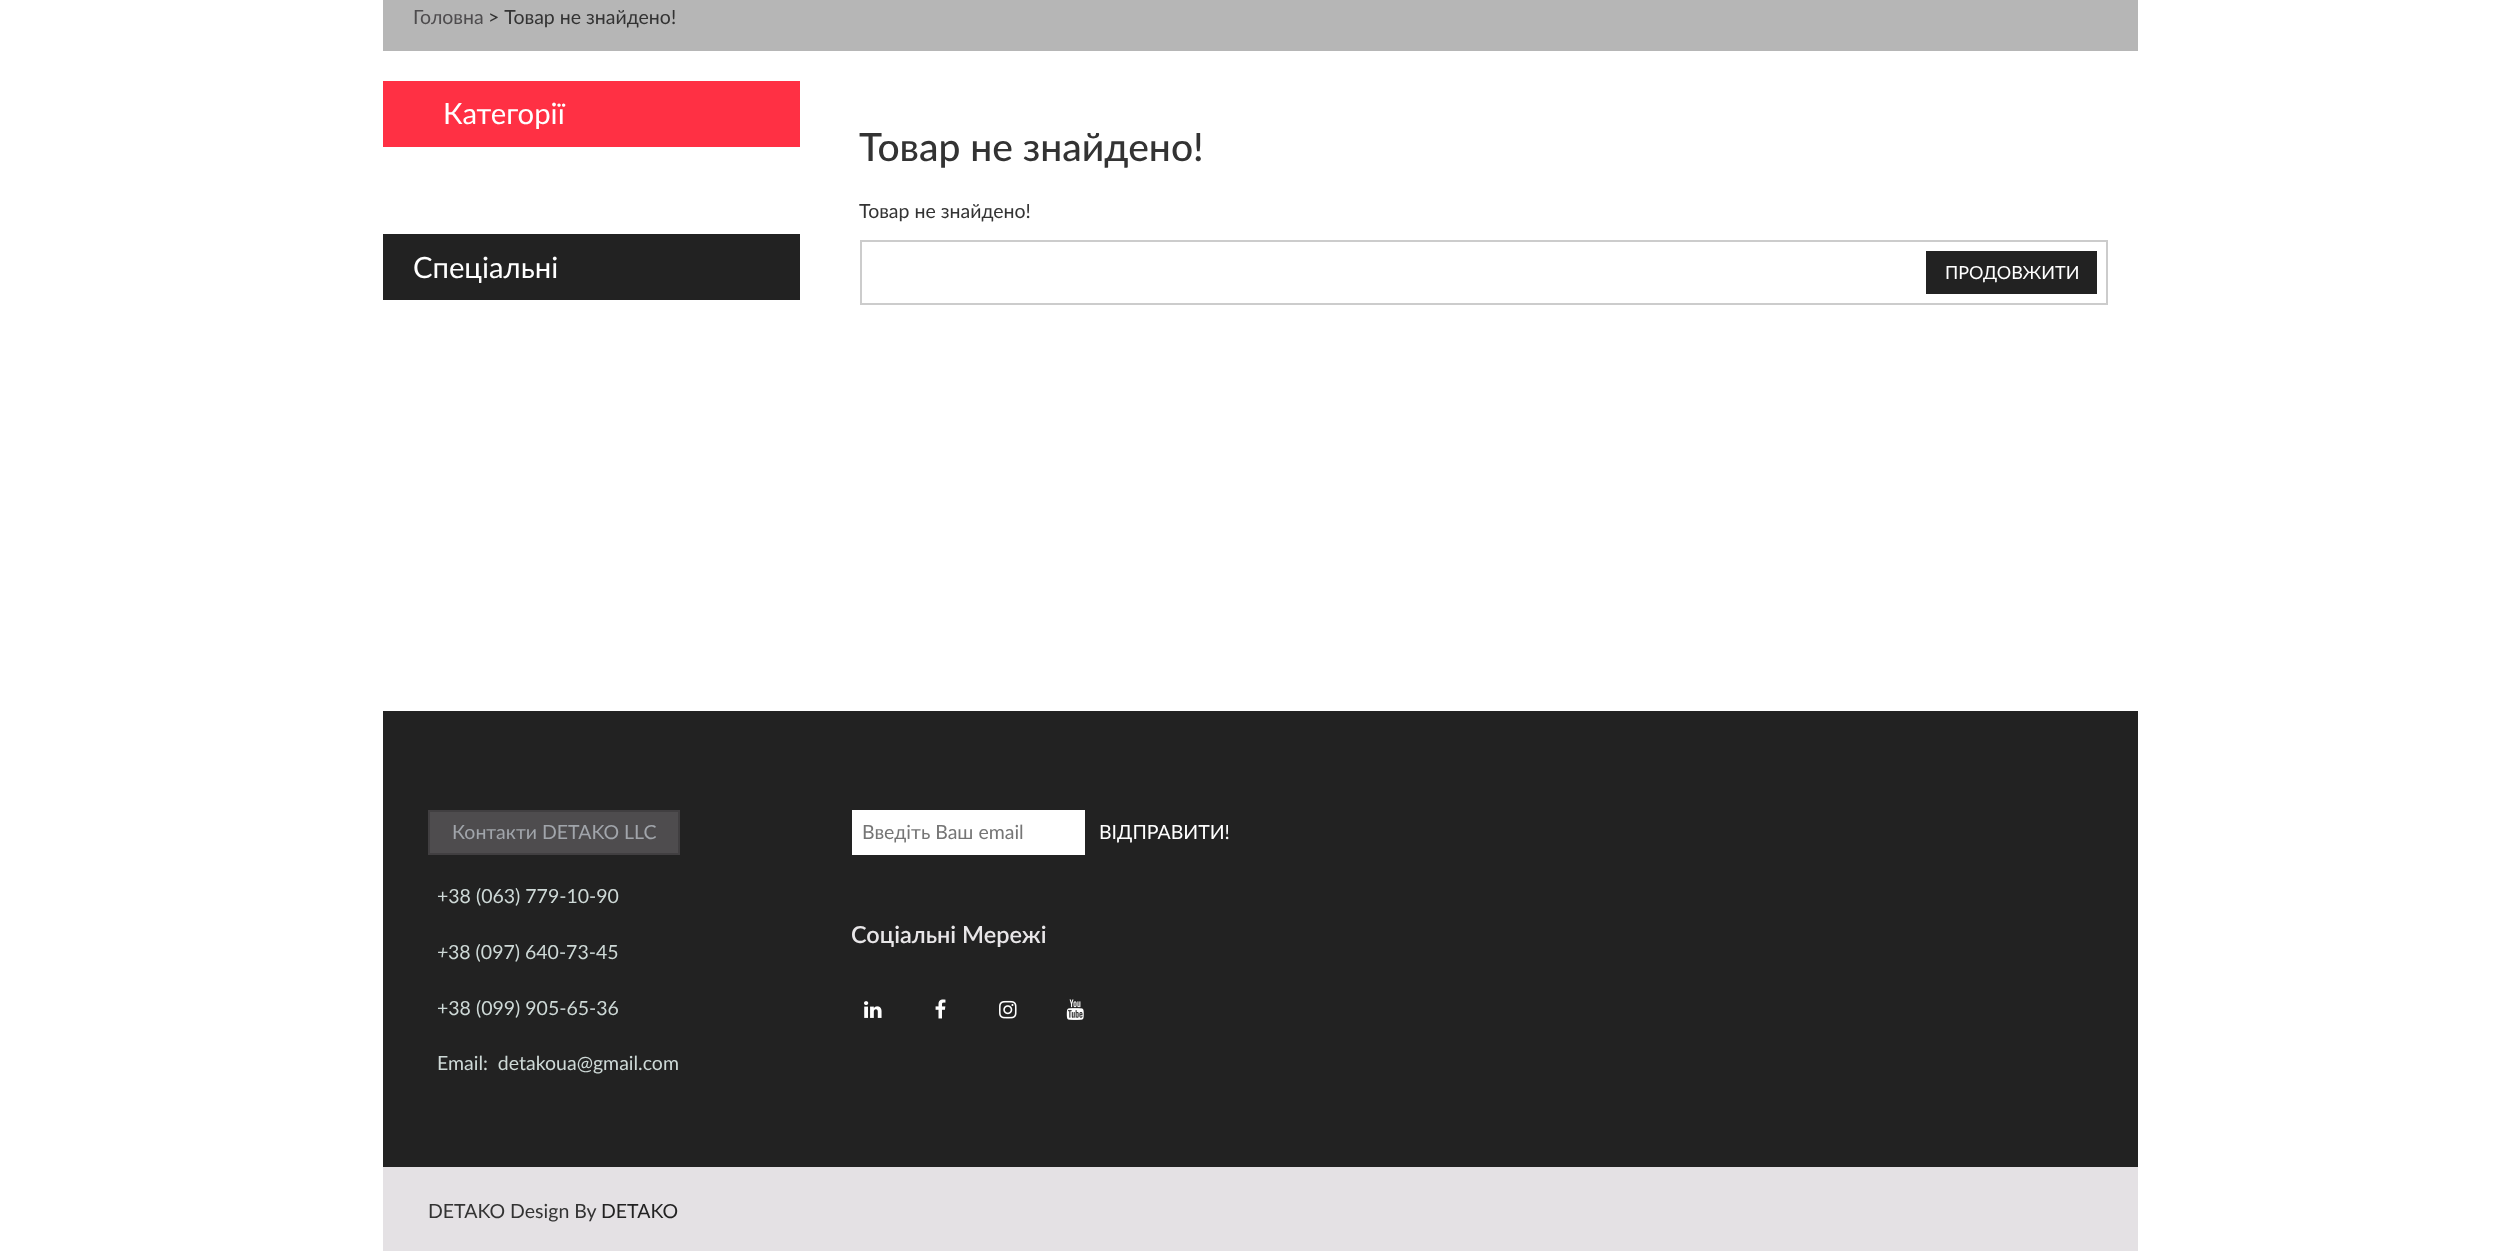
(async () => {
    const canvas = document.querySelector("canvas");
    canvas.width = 2519;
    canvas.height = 1251;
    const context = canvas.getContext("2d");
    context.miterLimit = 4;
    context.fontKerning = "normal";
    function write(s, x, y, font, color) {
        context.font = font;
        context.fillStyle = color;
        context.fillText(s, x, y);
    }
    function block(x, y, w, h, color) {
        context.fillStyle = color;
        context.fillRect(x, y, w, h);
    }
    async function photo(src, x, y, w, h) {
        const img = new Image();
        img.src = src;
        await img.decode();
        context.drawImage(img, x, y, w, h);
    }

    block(0, 0, 2519, 1251, "rgb(255, 255, 255)");
    block(383, 0, 1755, 51, "rgb(182, 182, 182)");
    write("Головна", 413, 24, "19.5px Lato", "rgb(78, 76, 78)");
    write("> Товар не знайдено!", 488, 24, "19.5px Lato", "rgb(51, 51, 51)");
    block(383, 81, 417, 66, "rgb(255, 48, 68)");
    write("Категорії", 443, 124, "29.25px Lato", "rgb(255, 255, 255)");
    block(383, 234, 417, 66, "rgb(34, 34, 34)");
    write("Спеціальні", 413, 278, "29.25px Lato", "rgb(255, 255, 255)");
    write("Товар не знайдено!", 859, 161, "500 39px Lato", "rgb(51, 51, 51)");
    write("Товар не знайдено!", 859, 218, "19.5px Lato", "rgb(51, 51, 51)");
    context.strokeStyle = "rgb(204, 204, 204)";
    context.lineWidth = 2;
    context.strokeRect(861, 241, 1246, 63);
    block(1926, 251, 171, 43, "rgb(34, 34, 34)");
    write("ПРОДОВЖИТИ", 1945, 279, "18px Lato", "rgb(255, 255, 255)");
    block(383, 711, 1755, 456, "rgb(34, 34, 34)");
    context.fillStyle = "rgb(78, 76, 78)";
    context.beginPath();
    context.rect(429, 811, 250, 43);
    context.fill();
    context.strokeStyle = "rgb(65, 63, 65)";
    context.stroke();
    write("Контакти DETAKO LLC", 452, 839, "19.5px Lato", "rgb(161, 165, 171)");
    write("+38 (063) 779-10-90", 437, 903, "19.5px Lato", "rgb(206, 217, 215)");
    write("+", 437, 959, "italic 19.5px Lato", "rgb(206, 217, 215)");
    write("38 (097) 640-73-45", 448, 959, "19.5px Lato", "rgb(206, 217, 215)");
    write("+38 (099) 905-65-36", 437, 1015, "19.5px Lato", "rgb(206, 217, 215)");
    write("Email:  detakoua@gmail.com", 437, 1070, "19.5px Lato", "rgb(206, 217, 215)");
    block(852, 810, 233, 45, "rgb(255, 255, 255)");
    write("Введіть Ваш email", 862, 839, "19.5px Lato", "rgb(117, 117, 117)");
    write("ВІДПРАВИТИ!", 1099, 839, "19.5px Lato", "rgb(255, 255, 255)");
    write("Соціальні Мережі", 851, 943, "600 23.5px Lato", "rgb(232, 230, 232)");
    await photo("media/1.png", 864, 1001, 18, 17);
    await photo("media/2.png", 935, 999, 11, 20);
    await photo("media/3.png", 999, 1000, 18, 19);
    await photo("media/4.png", 1066, 999, 18, 21);
    block(383, 1167, 1755, 84, "rgb(228, 225, 228)");
    write("DETAKO Design By", 428, 1218, "19.5px Lato", "rgb(51, 51, 51)");
    write("DETAKO", 601, 1218, "19.5px Lato", "rgb(34, 34, 34)");
})();
